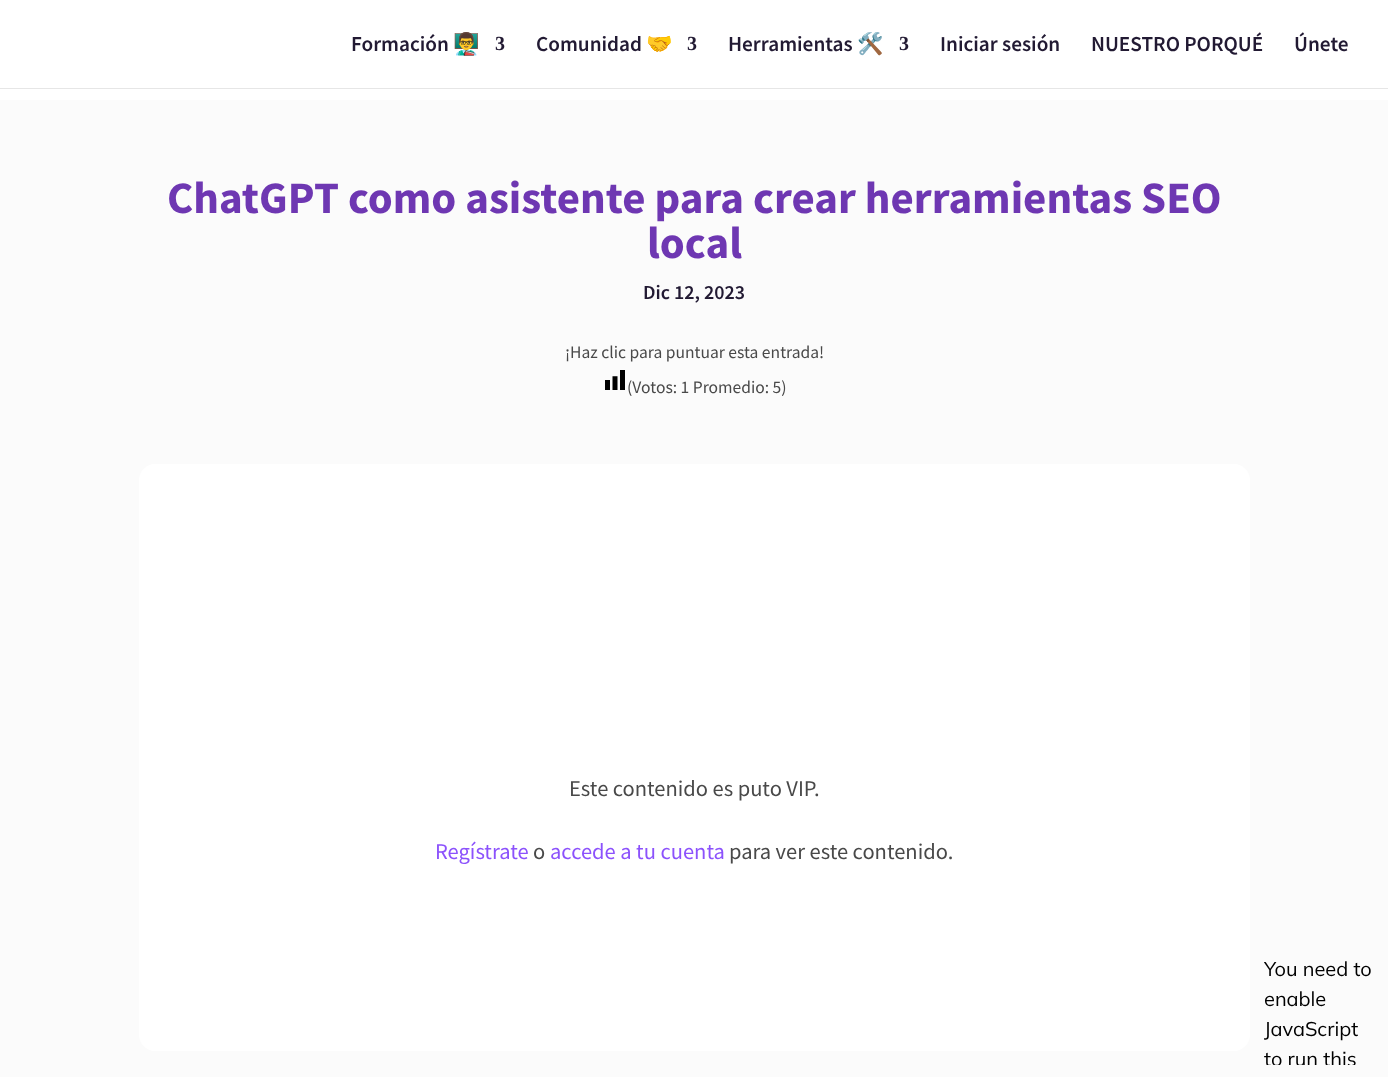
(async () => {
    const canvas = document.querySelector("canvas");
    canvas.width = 1388;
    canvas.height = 1077;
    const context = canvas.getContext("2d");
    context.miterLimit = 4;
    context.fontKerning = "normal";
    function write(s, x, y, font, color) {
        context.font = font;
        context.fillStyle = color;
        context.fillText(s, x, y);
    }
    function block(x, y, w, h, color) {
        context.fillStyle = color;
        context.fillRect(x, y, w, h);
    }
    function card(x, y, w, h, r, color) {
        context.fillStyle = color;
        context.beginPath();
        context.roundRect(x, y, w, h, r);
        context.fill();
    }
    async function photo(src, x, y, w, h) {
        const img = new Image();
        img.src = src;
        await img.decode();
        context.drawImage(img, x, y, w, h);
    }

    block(0, 0, 1388, 1077, "rgb(255, 255, 255)");
    context.fillStyle = "rgb(230, 230, 230)";
    context.beginPath();
    context.moveTo(0, 88);
    context.lineTo(0, 89);
    context.lineTo(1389, 89);
    context.lineTo(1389, 1);
    context.lineTo(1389, 88);
    context.closePath();
    context.fill();
    write("Formación", 351, 51, "600 21.25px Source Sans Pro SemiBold", "rgb(34, 26, 51)");
    write("👨‍🏫", 453, 51, "bold 21.25px Noto Color Emoji", "rgb(34, 26, 51)");
    write("3", 495, 50, "bold 20px Liberation Serif", "rgb(34, 26, 51)");
    write("Comunidad", 536, 51, "600 21.25px Source Sans Pro SemiBold", "rgb(34, 26, 51)");
    write("🤝", 646, 51, "bold 21.25px Noto Color Emoji", "rgb(34, 26, 51)");
    write("3", 687, 50, "bold 20px Liberation Serif", "rgb(34, 26, 51)");
    write("Herramientas", 728, 51, "600 21.25px Source Sans Pro SemiBold", "rgb(34, 26, 51)");
    write("🛠️", 857, 51, "bold 21.25px Noto Color Emoji", "rgb(34, 26, 51)");
    write("3", 899, 50, "bold 20px Liberation Serif", "rgb(34, 26, 51)");
    write("Iniciar sesión", 940, 51, "600 21.25px Source Sans Pro SemiBold", "rgb(34, 26, 51)");
    write("NUESTRO PORQUÉ", 1091, 51, "600 21.25px Source Sans Pro SemiBold", "rgb(34, 26, 51)");
    write("Únete", 1294, 51, "600 21.25px Source Sans Pro SemiBold", "rgb(34, 26, 51)");
    block(0, 100, 1388, 977, "rgb(251, 251, 251)");
    write("ChatGPT como asistente para crear herramientas SEO", 167, 213, "bold 45px Source Sans Pro", "rgb(110, 55, 178)");
    write("local", 647, 258, "bold 45px Source Sans Pro", "rgb(110, 55, 178)");
    write("Dic 12, 2023", 643, 299, "600 20px Source Sans Pro SemiBold", "rgb(34, 26, 51)");
    write("¡Haz clic para puntuar esta entrada!", 565, 358, "17.5px Source Sans Pro", "rgb(73, 73, 73)");
    await photo("media/1.png", 605, 370, 20, 20);
    write("(Votos: 1 Promedio: 5)", 627, 393, "17.5px Source Sans Pro", "rgb(73, 73, 73)");
    card(139, 464, 1111, 587, 16, "rgb(255, 255, 255)");
    write("Este contenido es puto VIP.", 569, 796, "22.5px Source Sans Pro", "rgb(73, 73, 73)");
    write("Regístrate", 435, 859, "22.5px Source Sans Pro", "rgb(140, 82, 252)");
    write("o", 533, 859, "22.5px Source Sans Pro", "rgb(73, 73, 73)");
    write("accede a tu cuenta", 550, 859, "22.5px Source Sans Pro", "rgb(140, 82, 252)");
    write("para ver este contenido.", 729, 859, "22.5px Source Sans Pro", "rgb(73, 73, 73)");
    await photo("media/2.png", 1264, 961, 107, 104);
})();
